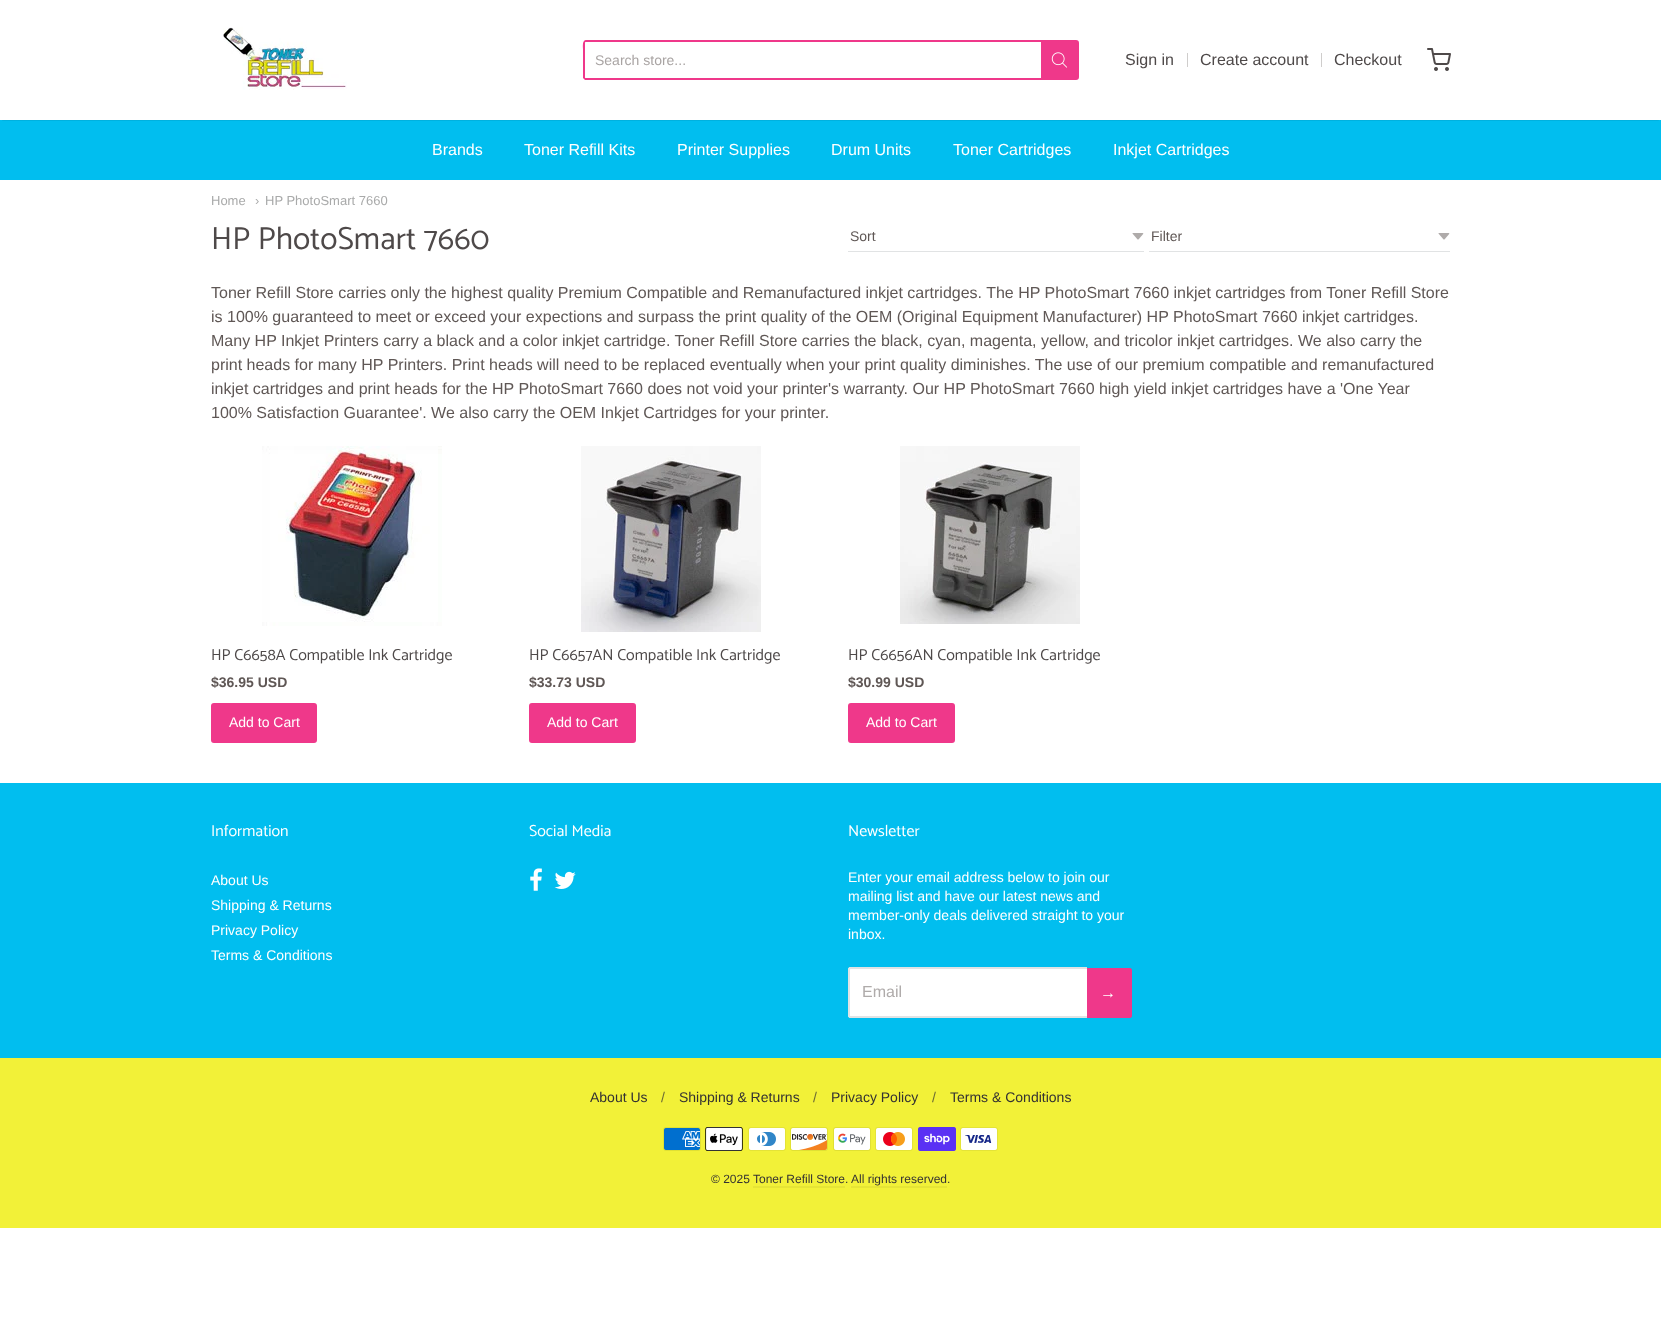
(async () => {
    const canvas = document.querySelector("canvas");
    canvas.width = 1661;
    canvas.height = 1342;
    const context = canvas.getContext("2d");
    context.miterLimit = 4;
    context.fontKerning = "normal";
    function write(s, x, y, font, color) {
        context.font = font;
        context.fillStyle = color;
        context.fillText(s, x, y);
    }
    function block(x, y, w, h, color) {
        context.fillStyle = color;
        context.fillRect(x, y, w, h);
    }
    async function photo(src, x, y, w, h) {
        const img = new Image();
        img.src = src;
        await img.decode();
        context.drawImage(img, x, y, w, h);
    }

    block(0, 0, 1661, 1342, "rgb(255, 255, 255)");
    block(0, 120, 1661, 60, "rgb(1, 190, 239)");
    context.save();
    context.beginPath();
    context.rect(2, 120, 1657, 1);
    context.clip();
    context.fillStyle = "rgba(0, 0, 0, 0.2)";
    context.filter = "blur(1px)";
    context.beginPath();
    context.rect(2, 4, 1657, 116);
    context.fill();
    context.filter = "none";
    context.restore();
    await photo("media/1.png", 223, 27, 124, 63);
    context.fillStyle = "rgb(239, 56, 138)";
    context.beginPath();
    context.moveTo(586, 40);
    context.lineTo(1041, 40);
    context.lineTo(1041, 80);
    context.lineTo(585, 80);
    context.lineTo(583, 78);
    context.lineTo(583, 49);
    context.bezierCurveTo(583, 47, 582, 40, 586, 40);
    context.closePath();
    context.moveTo(586, 42);
    context.lineTo(1041, 42);
    context.lineTo(1041, 78);
    context.lineTo(586, 78);
    context.bezierCurveTo(585, 78, 585, 78, 585, 77);
    context.lineTo(585, 43);
    context.bezierCurveTo(585, 42, 585, 42, 586, 42);
    context.closePath();
    context.fill("evenodd");
    write("Search store...", 595, 65, "14px Liberation Sans", "rgb(169, 164, 163)");
    context.fillStyle = "rgb(239, 56, 138)";
    context.beginPath();
    context.roundRect(1042, 41, 36, 38, [0, 2, 2, 0]);
    context.fill();
    context.strokeStyle = "rgb(239, 56, 138)";
    context.lineWidth = 2;
    context.stroke();
    await photo("media/2.png", 1051, 52, 17, 16);
    write("Sign in", 1125, 65, "16px Liberation Sans", "rgb(78, 73, 73)");
    block(1187, 53, 1, 14, "rgb(207, 205, 204)");
    write("Create account", 1200, 65, "16px Liberation Sans", "rgb(78, 73, 73)");
    block(1321, 53, 1, 14, "rgb(207, 205, 204)");
    write("Checkout", 1334, 65, "16px Liberation Sans", "rgb(78, 73, 73)");
    await photo("media/3.png", 1427, 48, 24, 23);
    write("Brands", 432, 155, "16px Liberation Sans", "rgb(255, 255, 255)");
    write("Toner Refill Kits", 524, 155, "16px Liberation Sans", "rgb(255, 255, 255)");
    write("Printer Supplies", 677, 155, "16px Liberation Sans", "rgb(255, 255, 255)");
    write("Drum Units", 831, 155, "16px Liberation Sans", "rgb(255, 255, 255)");
    write("Toner Cartridges", 953, 155, "16px Liberation Sans", "rgb(255, 255, 255)");
    write("Inkjet Cartridges", 1113, 155, "16px Liberation Sans", "rgb(255, 255, 255)");
    write("Home", 211, 205, "13px Liberation Sans", "rgb(169, 170, 170)");
    write("›", 255, 205, "13px Liberation Sans", "rgb(169, 170, 170)");
    write("HP PhotoSmart 7660", 265, 205, "13px Liberation Sans", "rgb(169, 170, 170)");
    write("HP PhotoSmart 7660", 211, 249, "32px Catamaran", "rgb(78, 73, 73)");
    await photo("media/4.png", 1132, 233, 12, 7);
    block(848, 251, 296, 1, "rgb(225, 227, 228)");
    write("Sort", 850, 241, "14px Liberation Sans", "rgb(95, 87, 85)");
    await photo("media/4.png", 1438, 233, 12, 7);
    block(1149, 251, 301, 1, "rgb(225, 227, 228)");
    write("Filter", 1151, 241, "14px Liberation Sans", "rgb(95, 87, 85)");
    write("Toner Refill Store carries only the highest quality Premium Compatible and Remanufactured inkjet cartridges. The HP PhotoSmart 7660 inkjet cartridges from Toner Refill Store", 211, 298, "16px Liberation Sans", "rgb(95, 87, 85)");
    write("is 100% guaranteed to meet or exceed your expections and surpass the print quality of the OEM (Original Equipment Manufacturer) HP PhotoSmart 7660 inkjet cartridges.", 211, 322, "16px Liberation Sans", "rgb(95, 87, 85)");
    write("Many HP Inkjet Printers carry a black and a color inkjet cartridge. Toner Refill Store carries the black, cyan, magenta, yellow, and tricolor inkjet cartridges. We also carry the", 211, 346, "16px Liberation Sans", "rgb(95, 87, 85)");
    write("print heads for many HP Printers. Print heads will need to be replaced eventually when your print quality diminishes. The use of our premium compatible and remanufactured", 211, 370, "16px Liberation Sans", "rgb(95, 87, 85)");
    write("inkjet cartridges and print heads for the HP PhotoSmart 7660 does not void your printer's warranty. Our HP PhotoSmart 7660 high yield inkjet cartridges have a 'One Year", 211, 394, "16px Liberation Sans", "rgb(95, 87, 85)");
    write("100% Satisfaction Guarantee'. We also carry the OEM Inkjet Cartridges for your printer.", 211, 418, "16px Liberation Sans", "rgb(95, 87, 85)");
    await photo("media/5.png", 262, 446, 180, 180);
    write("HP C6658A Compatible Ink Cartridge", 211, 660, "16px Catamaran", "rgb(78, 73, 73)");
    write("$36.95 USD", 211, 687, "bold 14px Liberation Sans", "rgb(95, 87, 85)");
    context.fillStyle = "rgb(239, 56, 138)";
    context.beginPath();
    context.roundRect(212, 704, 104, 38, 2);
    context.fill();
    context.stroke();
    write("Add to Cart", 229, 727, "14px Liberation Sans", "rgb(255, 255, 255)");
    await photo("media/6.png", 581, 446, 180, 186);
    write("HP C6657AN Compatible Ink Cartridge", 529, 660, "16px Catamaran", "rgb(78, 73, 73)");
    write("$33.73 USD", 529, 687, "bold 14px Liberation Sans", "rgb(95, 87, 85)");
    context.fillStyle = "rgb(239, 56, 138)";
    context.beginPath();
    context.roundRect(530, 704, 105, 38, 2);
    context.fill();
    context.stroke();
    write("Add to Cart", 547, 727, "14px Liberation Sans", "rgb(255, 255, 255)");
    await photo("media/7.png", 900, 446, 180, 178);
    write("HP C6656AN Compatible Ink Cartridge", 848, 660, "16px Catamaran", "rgb(78, 73, 73)");
    write("$30.99 USD", 848, 687, "bold 14px Liberation Sans", "rgb(95, 87, 85)");
    context.fillStyle = "rgb(239, 56, 138)";
    context.beginPath();
    context.roundRect(849, 704, 105, 38, 2);
    context.fill();
    context.stroke();
    write("Add to Cart", 866, 727, "14px Liberation Sans", "rgb(255, 255, 255)");
    block(0, 783, 1661, 275, "rgb(1, 190, 239)");
    write("Information", 211, 836, "16px Catamaran", "rgb(255, 255, 255)");
    write("About Us", 211, 885, "14px Liberation Sans", "rgb(255, 255, 255)");
    write("Shipping & Returns", 211, 910, "14px Liberation Sans", "rgb(255, 255, 255)");
    write("Privacy Policy", 211, 935, "14px Liberation Sans", "rgb(255, 255, 255)");
    write("Terms & Conditions", 211, 960, "14px Liberation Sans", "rgb(255, 255, 255)");
    write("Social Media", 529, 836, "16px Catamaran", "rgb(255, 255, 255)");
    await photo("media/8.png", 530, 868, 12, 23);
    await photo("media/9.png", 554, 871, 22, 18);
    write("Newsletter", 848, 836, "16px Catamaran", "rgb(255, 255, 255)");
    write("Enter your email address below to join our", 848, 882, "14px Liberation Sans", "rgb(255, 255, 255)");
    write("mailing list and have our latest news and", 848, 901, "14px Liberation Sans", "rgb(255, 255, 255)");
    write("member-only deals delivered straight to your", 848, 920, "14px Liberation Sans", "rgb(255, 255, 255)");
    write("inbox.", 848, 939, "14px Liberation Sans", "rgb(255, 255, 255)");
    context.beginPath();
    context.roundRect(848, 967, 239, 51, [3, 0, 0, 3]);
    context.fill();
    context.fillStyle = "rgb(225, 227, 228)";
    context.beginPath();
    context.moveTo(851, 967);
    context.lineTo(1087, 967);
    context.lineTo(1087, 1018);
    context.lineTo(851, 1018);
    context.bezierCurveTo(849, 1018, 848, 1017, 848, 1015);
    context.lineTo(848, 970);
    context.bezierCurveTo(848, 968, 849, 967, 851, 967);
    context.closePath();
    context.moveTo(851, 969);
    context.lineTo(1087, 969);
    context.lineTo(1087, 1016);
    context.lineTo(851, 1016);
    context.bezierCurveTo(850, 1016, 850, 1016, 850, 1015);
    context.lineTo(850, 970);
    context.bezierCurveTo(850, 969, 850, 969, 851, 969);
    context.closePath();
    context.fill("evenodd");
    write("Email", 862, 997, "16px Liberation Sans", "rgb(175, 171, 170)");
    context.fillStyle = "rgb(239, 56, 138)";
    context.beginPath();
    context.roundRect(1087, 968, 45, 50, [0, 3, 3, 0]);
    context.fill();
    context.beginPath();
    context.moveTo(1087, 968);
    context.lineTo(1129, 968);
    context.bezierCurveTo(1131, 968, 1132, 969, 1132, 971);
    context.lineTo(1132, 1015);
    context.bezierCurveTo(1132, 1017, 1131, 1018, 1129, 1018);
    context.lineTo(1087, 1018);
    context.closePath();
    context.moveTo(1087, 970);
    context.lineTo(1129, 970);
    context.bezierCurveTo(1130, 970, 1130, 970, 1130, 971);
    context.lineTo(1130, 1015);
    context.bezierCurveTo(1130, 1016, 1130, 1016, 1129, 1016);
    context.lineTo(1087, 1016);
    context.closePath();
    context.fill("evenodd");
    write("→", 1100, 998, "16px Liberation Sans", "rgb(255, 255, 255)");
    block(0, 1058, 1661, 170, "rgb(242, 241, 56)");
    write("About Us", 590, 1102, "14px Liberation Sans", "rgb(51, 49, 50)");
    write("/", 661, 1102, "14px Liberation Sans", "rgb(108, 107, 52)");
    write("Shipping & Returns", 679, 1102, "14px Liberation Sans", "rgb(51, 49, 50)");
    write("/", 813, 1102, "14px Liberation Sans", "rgb(108, 107, 52)");
    write("Privacy Policy", 831, 1102, "14px Liberation Sans", "rgb(51, 49, 50)");
    write("/", 932, 1102, "14px Liberation Sans", "rgb(108, 107, 52)");
    write("Terms & Conditions", 950, 1102, "14px Liberation Sans", "rgb(51, 49, 50)");
    await photo("media/10.png", 663, 1127, 38, 24);
    await photo("media/11.png", 705, 1127, 38, 24);
    await photo("media/12.png", 748, 1127, 38, 24);
    await photo("media/13.png", 790, 1127, 38, 24);
    await photo("media/14.png", 833, 1127, 38, 24);
    await photo("media/15.png", 875, 1127, 38, 24);
    await photo("media/16.png", 918, 1127, 38, 24);
    await photo("media/17.png", 960, 1127, 38, 24);
    write("© 2025 Toner Refill Store.", 711, 1183, "12px Liberation Sans", "rgb(51, 49, 50)");
    write("All rights reserved.", 851, 1183, "12px Liberation Sans", "rgb(51, 49, 50)");
    block(851, 1186, 96, 2, "rgb(230, 229, 53)");
    block(753, 1186, 92, 2, "rgb(230, 229, 53)");
})();
